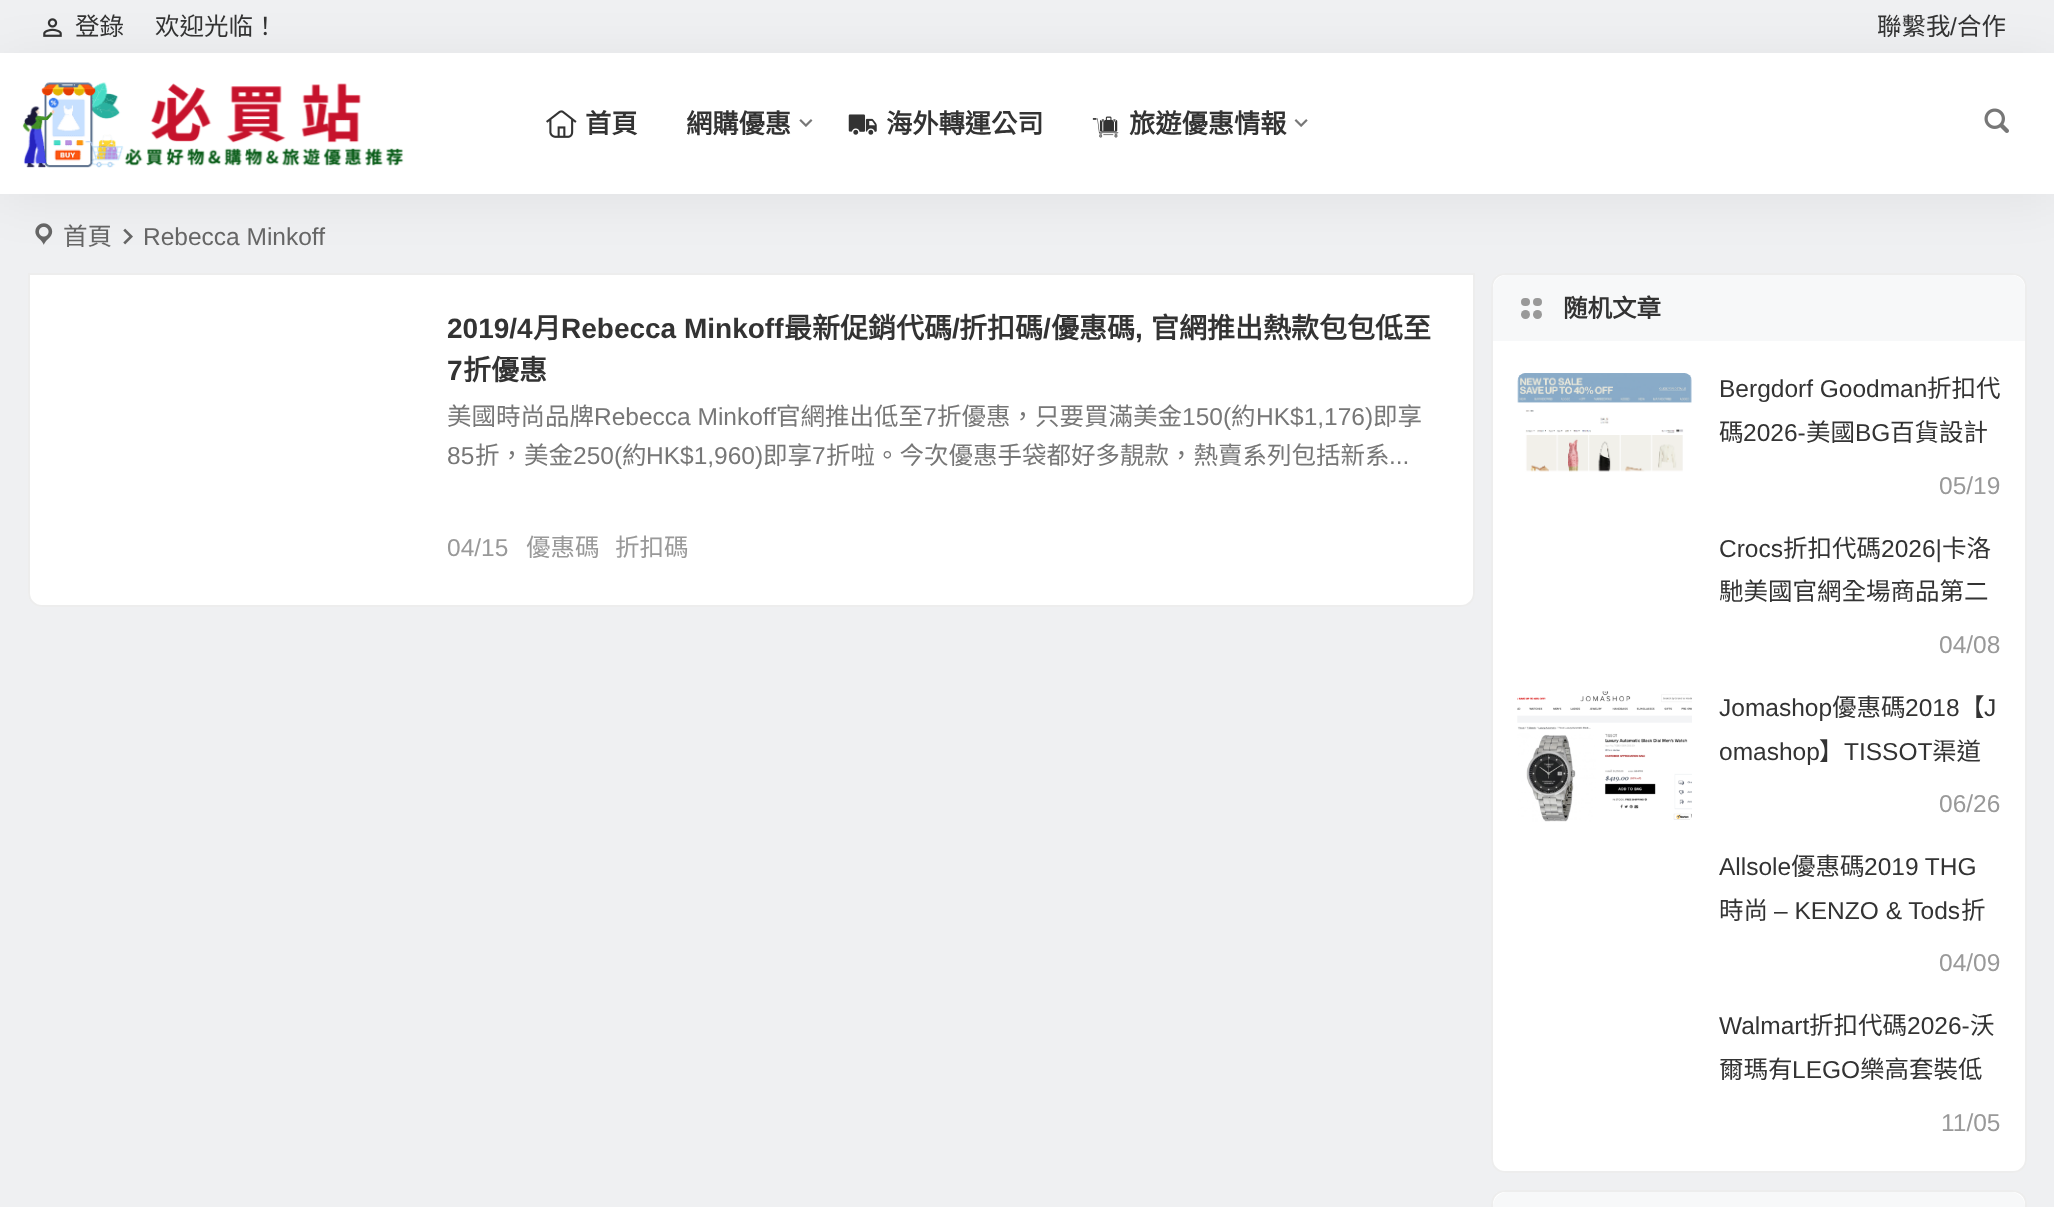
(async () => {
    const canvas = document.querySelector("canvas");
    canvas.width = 2054;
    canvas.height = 1207;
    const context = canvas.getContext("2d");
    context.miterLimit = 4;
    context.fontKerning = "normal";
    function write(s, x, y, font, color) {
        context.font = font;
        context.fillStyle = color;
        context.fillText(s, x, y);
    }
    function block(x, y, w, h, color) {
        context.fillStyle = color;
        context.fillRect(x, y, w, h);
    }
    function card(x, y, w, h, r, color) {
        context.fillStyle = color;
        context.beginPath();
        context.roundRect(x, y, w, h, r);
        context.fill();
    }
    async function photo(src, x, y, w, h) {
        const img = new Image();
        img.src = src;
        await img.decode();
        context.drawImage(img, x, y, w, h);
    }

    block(0, 0, 2054, 1207, "rgb(239, 240, 242)");
    await photo("media/9.png", 35, 223, 18, 22);
    await photo("media/10.png", 123, 228, 10, 17);
    context.fillStyle = "rgb(255, 255, 255)";
    context.beginPath();
    context.roundRect(28, 273, 1447, 334, [0, 0, 14, 14]);
    context.fill();
    context.beginPath();
    context.roundRect(29, 274, 1445, 332, [0, 0, 13, 13]);
    context.strokeStyle = "rgba(0, 0, 0, 0.07)";
    context.lineWidth = 2;
    context.stroke();
    card(1491, 273, 536, 900, 14, "rgb(255, 255, 255)");
    context.beginPath();
    context.roundRect(1492, 274, 534, 898, 13);
    context.stroke();
    context.fillStyle = "rgb(247, 248, 249)";
    context.beginPath();
    context.roundRect(1493, 275, 532, 66, [14, 14, 0, 0]);
    context.fill();
    context.fillStyle = "rgba(0, 0, 0, 0.06)";
    context.filter = "blur(26px)";
    context.beginPath();
    context.rect(0, 58, 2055, 142);
    context.fill();
    context.filter = "none";
    await photo("media/1.png", 43, 18, 19, 19);
    write("登錄", 75, 35, "24.5px Noto Sans CJK TC", "rgb(51, 51, 51)");
    write("欢迎光临！", 155, 35, "24.5px Noto Sans CJK TC", "rgb(51, 51, 51)");
    write("聯繫我", 1877, 35, "24.5px Noto Sans CJK TC", "rgb(51, 51, 51)");
    write("/", 1950, 35, "24.5px Liberation Sans", "rgb(51, 51, 51)");
    write("合作", 1957, 35, "24.5px Noto Sans CJK TC", "rgb(51, 51, 51)");
    block(0, 53, 2054, 141, "rgb(255, 255, 255)");
    await photo("media/2.png", 22, 82, 382, 86);
    await photo("media/3.png", 546, 110, 31, 28);
    write("首頁", 585, 133, "bold 26.25px Noto Sans CJK TC", "rgb(51, 51, 51)");
    write("網購優惠", 686, 133, "bold 26.25px Noto Sans CJK TC", "rgb(51, 51, 51)");
    await photo("media/4.png", 799, 119, 14, 8);
    await photo("media/5.png", 848, 114, 29, 21);
    write("海外轉運公司", 886, 133, "bold 26.25px Noto Sans CJK TC", "rgb(51, 51, 51)");
    await photo("media/6.png", 1092, 116, 27, 22);
    write("旅遊優惠情報", 1129, 133, "bold 26.25px Noto Sans CJK TC", "rgb(51, 51, 51)");
    await photo("media/7.png", 1294, 119, 14, 8);
    await photo("media/8.png", 1984, 108, 25, 25);
    write("首頁", 63, 245, "24.5px Noto Sans CJK TC", "rgb(102, 102, 102)");
    write("Rebecca Minkoff", 143, 245, "24.5px Liberation Sans", "rgb(102, 102, 102)");
    write("2019/4", 447, 338, "bold 28px Liberation Sans", "rgb(51, 51, 51)");
    write("月", 533, 338, "bold 28px Noto Sans CJK TC", "rgb(51, 51, 51)");
    write("Rebecca Minkoff", 561, 338, "bold 28px Liberation Sans", "rgb(51, 51, 51)");
    write("最新促銷代碼", 784, 338, "bold 28px Noto Sans CJK TC", "rgb(51, 51, 51)");
    write("/", 952, 338, "bold 28px Liberation Sans", "rgb(51, 51, 51)");
    write("折扣碼", 959, 338, "bold 28px Noto Sans CJK TC", "rgb(51, 51, 51)");
    write("/", 1043, 338, "bold 28px Liberation Sans", "rgb(51, 51, 51)");
    write("優惠碼", 1051, 338, "bold 28px Noto Sans CJK TC", "rgb(51, 51, 51)");
    write(",", 1135, 338, "bold 28px Liberation Sans", "rgb(51, 51, 51)");
    write("官網推出熱款包包低至", 1151, 338, "bold 28px Noto Sans CJK TC", "rgb(51, 51, 51)");
    write("7", 447, 380, "bold 28px Liberation Sans", "rgb(51, 51, 51)");
    write("折優惠", 463, 380, "bold 28px Noto Sans CJK TC", "rgb(51, 51, 51)");
    write("美國時尚品牌", 447, 425, "24.5px Noto Sans CJK TC", "rgb(119, 119, 119)");
    write("Rebecca Minkoff", 594, 425, "24.5px Liberation Sans", "rgb(119, 119, 119)");
    write("官網推出低至", 776, 425, "24.5px Noto Sans CJK TC", "rgb(119, 119, 119)");
    write("7", 923, 425, "24.5px Liberation Sans", "rgb(119, 119, 119)");
    write("折優惠，只要買滿美金", 937, 425, "24.5px Noto Sans CJK TC", "rgb(119, 119, 119)");
    write("150(", 1182, 425, "24.5px Liberation Sans", "rgb(119, 119, 119)");
    write("約", 1231, 425, "24.5px Noto Sans CJK TC", "rgb(119, 119, 119)");
    write("HK$1,176)", 1256, 425, "24.5px Liberation Sans", "rgb(119, 119, 119)");
    write("即享", 1373, 425, "24.5px Noto Sans CJK TC", "rgb(119, 119, 119)");
    write("85", 447, 464, "24.5px Liberation Sans", "rgb(119, 119, 119)");
    write("折，美金", 475, 464, "24.5px Noto Sans CJK TC", "rgb(119, 119, 119)");
    write("250(", 573, 464, "24.5px Liberation Sans", "rgb(119, 119, 119)");
    write("約", 622, 464, "24.5px Noto Sans CJK TC", "rgb(119, 119, 119)");
    write("HK$1,960)", 646, 464, "24.5px Liberation Sans", "rgb(119, 119, 119)");
    write("即享", 763, 464, "24.5px Noto Sans CJK TC", "rgb(119, 119, 119)");
    write("7", 812, 464, "24.5px Liberation Sans", "rgb(119, 119, 119)");
    write("折啦。今次優惠手袋都好多靚款，熱賣系列包括新系", 826, 464, "24.5px Noto Sans CJK TC", "rgb(119, 119, 119)");
    write("...", 1389, 464, "24.5px Liberation Sans", "rgb(119, 119, 119)");
    write("04/15", 447, 556, "24.5px Liberation Sans", "rgb(153, 153, 153)");
    write("優惠碼", 526, 556, "24.5px Noto Sans CJK TC", "rgb(153, 153, 153)");
    write("折扣碼", 615, 556, "24.5px Noto Sans CJK TC", "rgb(153, 153, 153)");
    card(1521, 298, 9, 8, 4, "rgb(153, 153, 153)");
    card(1533, 298, 9, 8, 4, "rgb(153, 153, 153)");
    context.beginPath();
    context.arc(1525.5, 314.5, 4.5, 0, Math.PI * 2);
    context.fill();
    context.beginPath();
    context.arc(1537.5, 314.5, 4.5, 0, Math.PI * 2);
    context.fill();
    write("随机文章", 1563, 317, "bold 24.5px Noto Sans CJK TC", "rgb(51, 51, 51)");
    await photo("media/11.png", 1517, 373, 175, 99);
    write("Bergdorf Goodman", 1719, 397, "24.5px Liberation Sans", "rgb(51, 51, 51)");
    write("折扣代", 1927, 397, "24.5px Noto Sans CJK TC", "rgb(51, 51, 51)");
    write("碼", 1719, 441, "24.5px Noto Sans CJK TC", "rgb(51, 51, 51)");
    write("2026-", 1743, 441, "24.5px Liberation Sans", "rgb(51, 51, 51)");
    write("美國", 1806, 441, "24.5px Noto Sans CJK TC", "rgb(51, 51, 51)");
    write("BG", 1855, 441, "24.5px Liberation Sans", "rgb(51, 51, 51)");
    write("百貨設計", 1890, 441, "24.5px Noto Sans CJK TC", "rgb(51, 51, 51)");
    write("05/19", 1939, 494, "24.5px Liberation Sans", "rgb(153, 153, 153)");
    write("Crocs", 1719, 557, "24.5px Liberation Sans", "rgb(51, 51, 51)");
    write("折扣代碼", 1783, 557, "24.5px Noto Sans CJK TC", "rgb(51, 51, 51)");
    write("2026|", 1881, 557, "24.5px Liberation Sans", "rgb(51, 51, 51)");
    write("卡洛", 1942, 557, "24.5px Noto Sans CJK TC", "rgb(51, 51, 51)");
    write("馳美國官網全場商品第二", 1719, 600, "24.5px Noto Sans CJK TC", "rgb(51, 51, 51)");
    write("04/08", 1939, 653, "24.5px Liberation Sans", "rgb(153, 153, 153)");
    await photo("media/12.png", 1517, 691, 175, 131);
    write("Jomashop", 1719, 716, "24.5px Liberation Sans", "rgb(51, 51, 51)");
    write("優惠碼", 1832, 716, "24.5px Noto Sans CJK TC", "rgb(51, 51, 51)");
    write("2018", 1905, 716, "24.5px Liberation Sans", "rgb(51, 51, 51)");
    write("【", 1960, 716, "24.5px Noto Sans CJK TC", "rgb(51, 51, 51)");
    write("J", 1984, 716, "24.5px Liberation Sans", "rgb(51, 51, 51)");
    write("omashop", 1719, 760, "24.5px Liberation Sans", "rgb(51, 51, 51)");
    write("】", 1819, 760, "24.5px Noto Sans CJK TC", "rgb(51, 51, 51)");
    write("TISSOT", 1844, 760, "24.5px Liberation Sans", "rgb(51, 51, 51)");
    write("渠道", 1932, 760, "24.5px Noto Sans CJK TC", "rgb(51, 51, 51)");
    write("06/26", 1939, 812, "24.5px Liberation Sans", "rgb(153, 153, 153)");
    write("Allsole", 1719, 875, "24.5px Liberation Sans", "rgb(51, 51, 51)");
    write("優惠碼", 1791, 875, "24.5px Noto Sans CJK TC", "rgb(51, 51, 51)");
    write("2019 THG", 1864, 875, "24.5px Liberation Sans", "rgb(51, 51, 51)");
    write("時尚", 1719, 919, "24.5px Noto Sans CJK TC", "rgb(51, 51, 51)");
    write("– KENZO & Tods", 1774, 919, "24.5px Liberation Sans", "rgb(51, 51, 51)");
    write("折", 1961, 919, "24.5px Noto Sans CJK TC", "rgb(51, 51, 51)");
    write("04/09", 1939, 971, "24.5px Liberation Sans", "rgb(153, 153, 153)");
    write("Walmart", 1719, 1034, "24.5px Liberation Sans", "rgb(51, 51, 51)");
    write("折扣代碼", 1809, 1034, "24.5px Noto Sans CJK TC", "rgb(51, 51, 51)");
    write("2026-", 1907, 1034, "24.5px Liberation Sans", "rgb(51, 51, 51)");
    write("沃", 1970, 1034, "24.5px Noto Sans CJK TC", "rgb(51, 51, 51)");
    write("爾瑪有", 1719, 1078, "24.5px Noto Sans CJK TC", "rgb(51, 51, 51)");
    write("LEGO", 1792, 1078, "24.5px Liberation Sans", "rgb(51, 51, 51)");
    write("樂高套裝低", 1860, 1078, "24.5px Noto Sans CJK TC", "rgb(51, 51, 51)");
    write("11/05", 1941, 1131, "24.5px Liberation Sans", "rgb(153, 153, 153)");
    card(1491, 1190, 536, 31, 14, "rgb(255, 255, 255)");
    context.beginPath();
    context.roundRect(1492, 1191, 534, 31, 13);
    context.stroke();
    context.fillStyle = "rgb(247, 248, 249)";
    context.beginPath();
    context.moveTo(1507, 1192);
    context.lineTo(2011, 1192);
    context.bezierCurveTo(2018.5, 1192, 2025, 1198.5, 2025, 1206);
    context.lineTo(2025, 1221);
    context.lineTo(1493, 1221);
    context.lineTo(1493, 1206);
    context.bezierCurveTo(1493, 1198.5, 1499.5, 1192, 1507, 1192);
    context.closePath();
    context.fill();
})();
